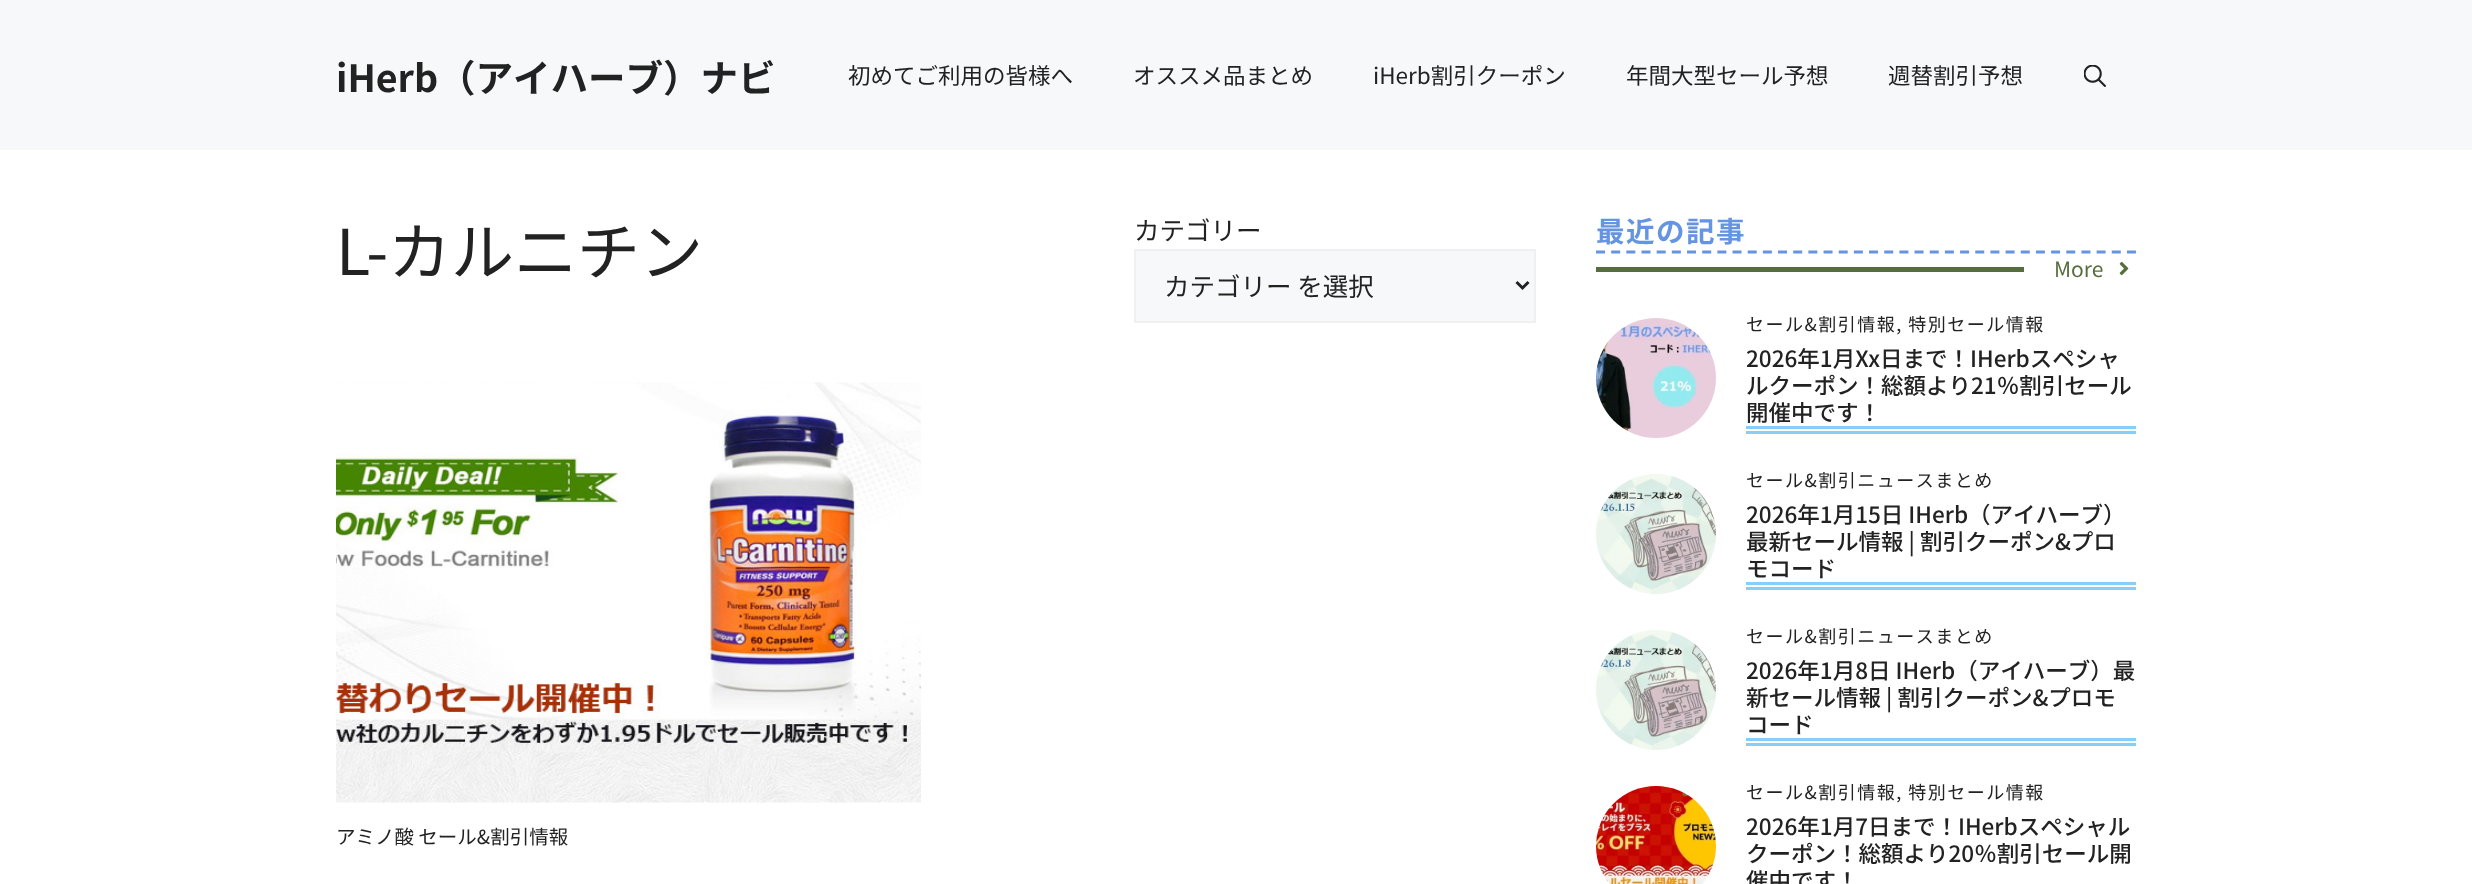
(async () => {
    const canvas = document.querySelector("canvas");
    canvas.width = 2472;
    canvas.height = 884;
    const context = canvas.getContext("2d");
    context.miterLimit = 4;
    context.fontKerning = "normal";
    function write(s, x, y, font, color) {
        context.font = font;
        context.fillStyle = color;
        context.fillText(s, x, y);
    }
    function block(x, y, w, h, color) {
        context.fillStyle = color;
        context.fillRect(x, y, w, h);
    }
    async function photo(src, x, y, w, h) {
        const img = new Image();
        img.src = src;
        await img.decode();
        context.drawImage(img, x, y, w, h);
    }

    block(0, 0, 2472, 884, "rgb(255, 255, 255)");
    block(0, 0, 2472, 150, "rgb(247, 248, 249)");
    write("iHerb（アイハーブ）ナビ", 336, 92, "bold 37.5px Noto Sans JP", "rgb(34, 34, 34)");
    write("初めてご利用の皆様へ", 848, 84, "22.5px Noto Sans JP", "rgb(34, 34, 34)");
    write("オススメ品まとめ", 1133, 84, "22.5px Noto Sans JP", "rgb(34, 34, 34)");
    write("iHerb割引クーポン", 1373, 84, "22.5px Noto Sans JP", "rgb(34, 34, 34)");
    write("年間大型セール予想", 1626, 84, "22.5px Noto Sans JP", "rgb(34, 34, 34)");
    write("週替割引予想", 1888, 84, "22.5px Noto Sans JP", "rgb(34, 34, 34)");
    await photo("media/1.png", 2084, 65, 22, 22);
    write("L-カルニチン", 336, 275, "63px Noto Sans JP", "rgb(34, 34, 34)");
    write("カテゴリー", 1134, 240, "25.5px Noto Sans JP", "rgb(34, 34, 34)");
    context.fillStyle = "rgb(247, 248, 249)";
    context.beginPath();
    context.rect(1135, 250, 400, 72);
    context.fill();
    context.strokeStyle = "rgb(240, 240, 240)";
    context.lineWidth = 2;
    context.stroke();
    context.beginPath();
    context.moveTo(1516.5, 282);
    context.lineTo(1522.5, 288);
    context.lineTo(1528.5, 282);
    context.strokeStyle = "rgb(34, 34, 34)";
    context.lineWidth = 3;
    context.stroke();
    write("カテゴリー を選択", 1164, 296, "25.5px Noto Sans JP", "rgb(34, 34, 34)");
    await photo("media/2.png", 336, 382, 585, 421);
    write("アミノ酸 セール&割引情報", 336, 844, "19.5px Noto Sans JP", "rgb(34, 34, 34)");
    context.beginPath();
    context.moveTo(1596, 252);
    context.lineTo(2136, 252);
    context.strokeStyle = "rgb(101, 148, 224)";
    context.setLineDash([9, 6.17]);
    context.stroke();
    context.letterSpacing = "1.5px";
    write("最近の記事", 1596, 242, "bold 28.5px Noto Sans JP", "rgb(101, 148, 224)");
    block(1596, 267, 428, 5, "rgb(86, 110, 61)");
    context.letterSpacing = "0px";
    write("More", 2054, 277, "21px Noto Sans JP", "rgb(86, 110, 61)");
    await photo("media/3.png", 2119, 261, 10, 14);
    await photo("media/4.png", 1596, 318, 120, 120);
    context.letterSpacing = "1.5px";
    write("セール&割引情報, 特別セール情報", 1746, 331, "18px Noto Sans JP", "rgb(34, 34, 34)");
    block(1746, 426, 390, 3, "rgb(135, 206, 250)");
    block(1746, 431, 390, 3, "rgb(135, 206, 250)");
    context.letterSpacing = "0px";
    write("2026年1月Xx日まで！IHerbスペシャ", 1746, 367, "500 22.5px Noto Sans JP", "rgb(34, 34, 34)");
    write("ルクーポン！総額より21％割引セール", 1746, 394, "500 22.5px Noto Sans JP", "rgb(34, 34, 34)");
    write("開催中です！", 1746, 421, "500 22.5px Noto Sans JP", "rgb(34, 34, 34)");
    await photo("media/5.png", 1596, 474, 120, 120);
    context.letterSpacing = "1.5px";
    write("セール&割引ニュースまとめ", 1746, 487, "18px Noto Sans JP", "rgb(34, 34, 34)");
    block(1746, 582, 390, 3, "rgb(135, 206, 250)");
    block(1746, 587, 390, 3, "rgb(135, 206, 250)");
    context.letterSpacing = "0px";
    write("2026年1月15日 IHerb（アイハーブ）", 1746, 523, "500 22.5px Noto Sans JP", "rgb(34, 34, 34)");
    write("最新セール情報 | 割引クーポン&プロ", 1746, 550, "500 22.5px Noto Sans JP", "rgb(34, 34, 34)");
    write("モコード", 1746, 577, "500 22.5px Noto Sans JP", "rgb(34, 34, 34)");
    await photo("media/6.png", 1596, 630, 120, 120);
    context.letterSpacing = "1.5px";
    write("セール&割引ニュースまとめ", 1746, 643, "18px Noto Sans JP", "rgb(34, 34, 34)");
    block(1746, 738, 390, 3, "rgb(135, 206, 250)");
    block(1746, 743, 390, 3, "rgb(135, 206, 250)");
    context.letterSpacing = "0px";
    write("2026年1月8日 IHerb（アイハーブ）最", 1746, 679, "500 22.5px Noto Sans JP", "rgb(34, 34, 34)");
    write("新セール情報 | 割引クーポン&プロモ", 1746, 706, "500 22.5px Noto Sans JP", "rgb(34, 34, 34)");
    write("コード", 1746, 733, "500 22.5px Noto Sans JP", "rgb(34, 34, 34)");
    await photo("media/7.png", 1596, 786, 120, 98);
    context.letterSpacing = "1.5px";
    write("セール&割引情報, 特別セール情報", 1746, 799, "18px Noto Sans JP", "rgb(34, 34, 34)");
    context.letterSpacing = "0px";
    write("2026年1月7日まで！IHerbスペシャル", 1746, 835, "500 22.5px Noto Sans JP", "rgb(34, 34, 34)");
    write("クーポン！総額より20％割引セール開", 1746, 862, "500 22.5px Noto Sans JP", "rgb(34, 34, 34)");
    write("催中です！", 1746, 889, "500 22.5px Noto Sans JP", "rgb(34, 34, 34)");
})();
